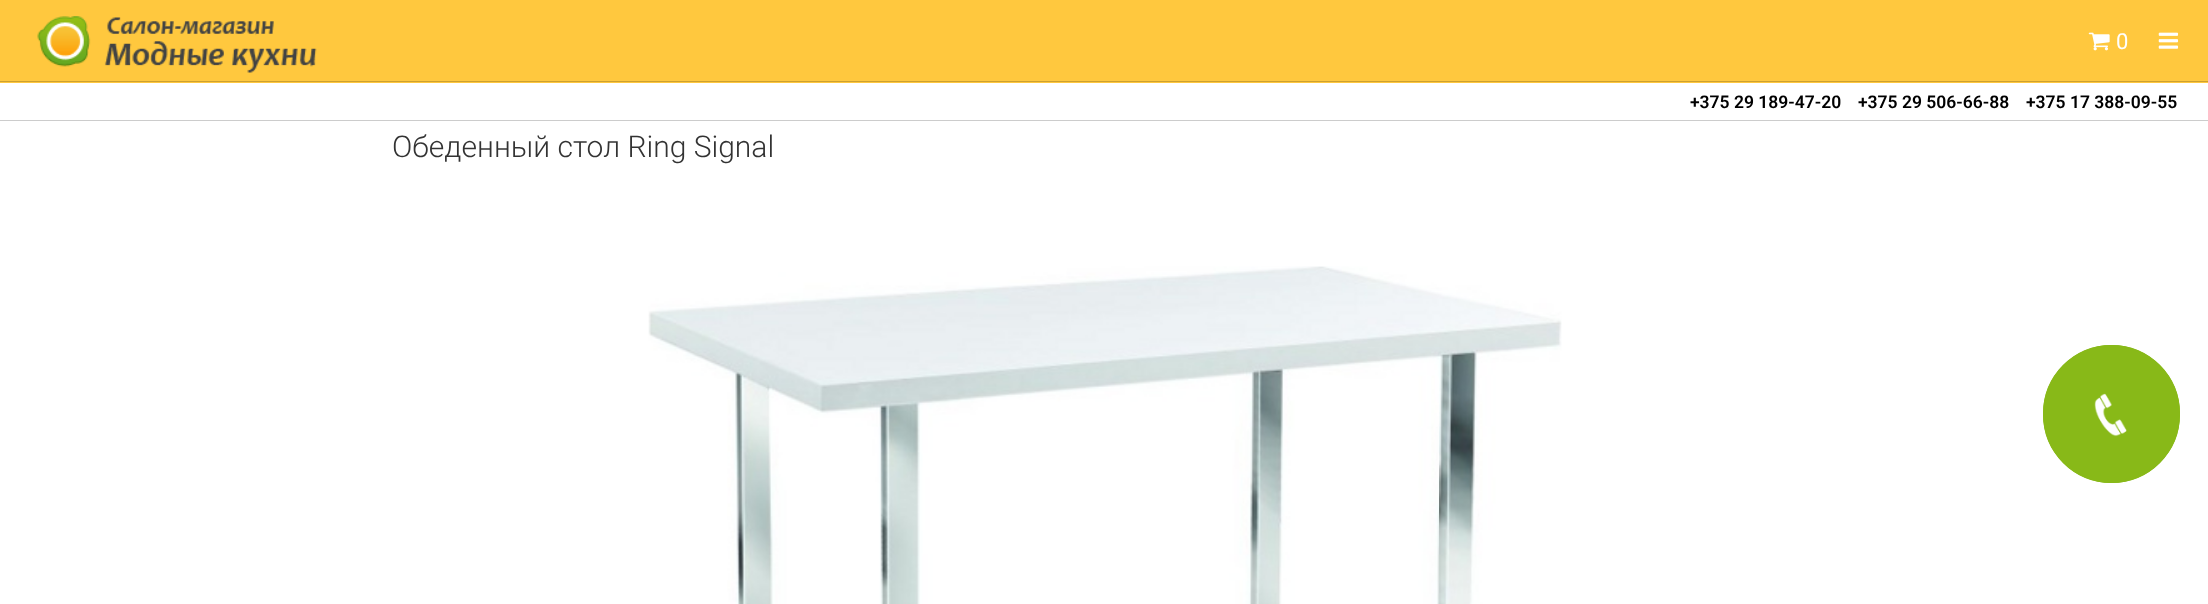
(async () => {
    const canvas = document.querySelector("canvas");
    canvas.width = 2208;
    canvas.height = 604;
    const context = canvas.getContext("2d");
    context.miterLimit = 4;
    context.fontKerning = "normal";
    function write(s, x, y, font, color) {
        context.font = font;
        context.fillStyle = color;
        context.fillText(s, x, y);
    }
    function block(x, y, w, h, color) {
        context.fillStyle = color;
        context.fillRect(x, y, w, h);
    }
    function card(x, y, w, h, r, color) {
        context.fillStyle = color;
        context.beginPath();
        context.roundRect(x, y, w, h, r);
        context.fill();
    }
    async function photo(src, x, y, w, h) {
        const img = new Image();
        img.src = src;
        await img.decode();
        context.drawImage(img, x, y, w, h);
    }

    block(0, 0, 2208, 604, "rgb(255, 255, 255)");
    block(0, 0, 2208, 83, "rgb(255, 200, 62)");
    await photo("media/1.png", 37, 16, 280, 57);
    await photo("media/2.png", 2088, 32, 22, 19);
    write("0", 2116, 49, "22px Roboto", "rgb(255, 255, 255)");
    await photo("media/3.png", 2158, 32, 21, 17);
    context.strokeStyle = "rgba(0, 0, 0, 0.2)";
    context.strokeRect(-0.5, 81.5, 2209, 39);
    write("+375 29 189-47-20", 1690, 108, "600 17.5px Roboto", "rgb(0, 0, 0)");
    write("+375 29 506-66-88", 1858, 108, "600 17.5px Roboto", "rgb(0, 0, 0)");
    write("+375 17 388-09-55", 2026, 108, "600 17.5px Roboto", "rgb(0, 0, 0)");
    write("Обеденный стол Ring Signal", 392, 157, "300 30px Roboto", "rgb(51, 51, 51)");
    await photo("media/4.png", 648, 266, 914, 338);
    context.beginPath();
    context.roundRect(2044.5, 346.5, 134, 135, 67);
    context.strokeStyle = "rgb(136, 185, 24)";
    context.lineWidth = 3;
    context.stroke();
    card(2043, 345, 137, 138, 68.5, "rgb(136, 185, 24)");
    await photo("media/5.png", 2094, 393, 33, 44);
})();
